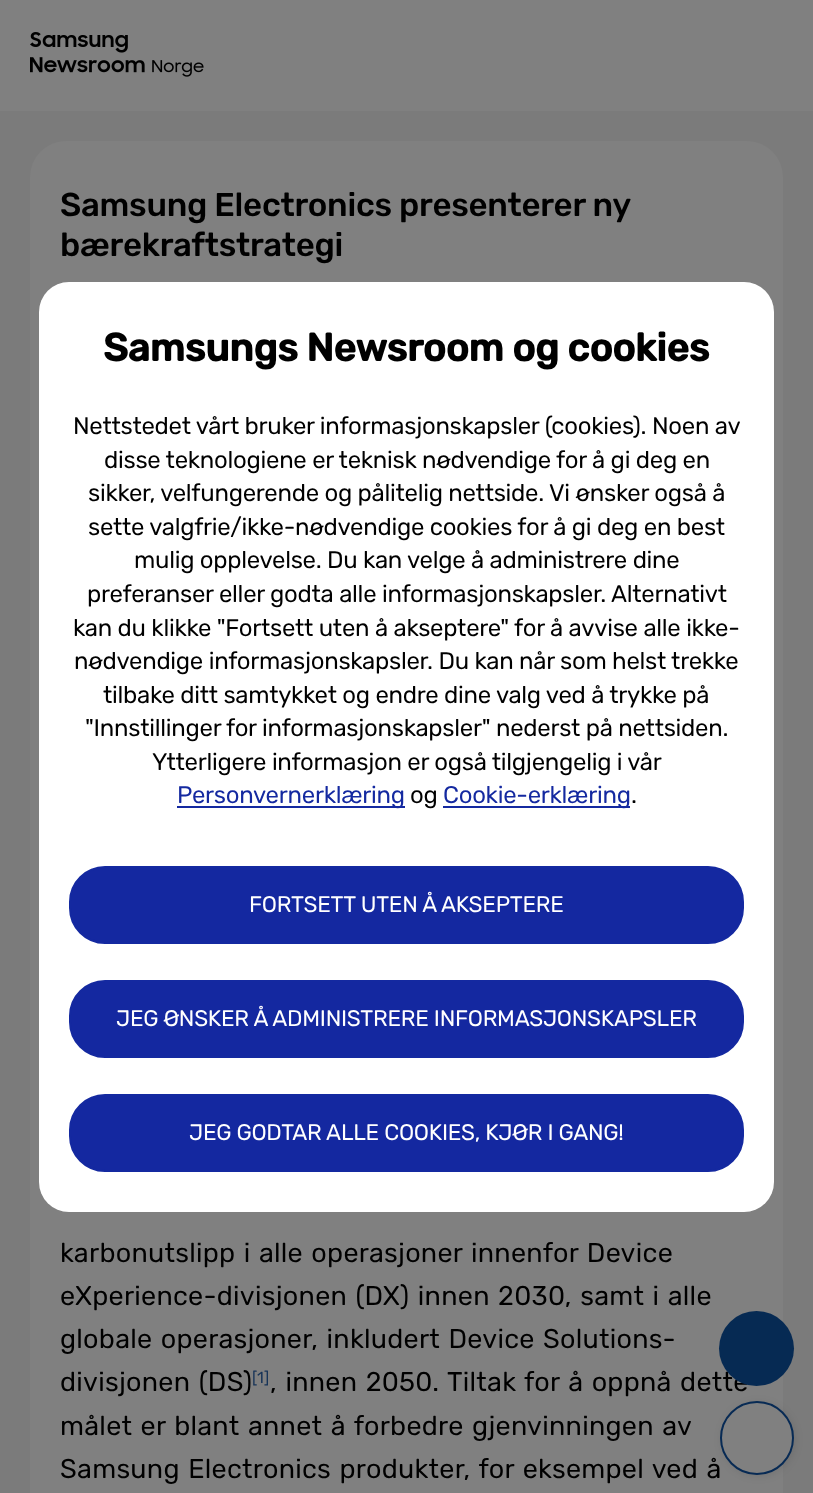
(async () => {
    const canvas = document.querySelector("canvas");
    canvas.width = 813;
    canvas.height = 1493;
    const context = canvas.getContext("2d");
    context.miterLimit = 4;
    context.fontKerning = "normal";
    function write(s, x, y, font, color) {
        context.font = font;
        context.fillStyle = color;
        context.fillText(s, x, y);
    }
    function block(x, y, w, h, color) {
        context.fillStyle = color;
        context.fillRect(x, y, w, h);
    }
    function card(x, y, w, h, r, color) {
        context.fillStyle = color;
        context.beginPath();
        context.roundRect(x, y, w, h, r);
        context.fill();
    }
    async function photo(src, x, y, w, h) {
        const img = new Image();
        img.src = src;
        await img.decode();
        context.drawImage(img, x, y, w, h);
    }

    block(0, 0, 813, 1493, "rgb(128, 128, 128)");
    await photo("media/1.png", 30, 32, 174, 45);
    block(0, 111, 813, 1382, "rgb(123, 123, 123)");
    card(30, 141, 753, 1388, 36, "rgb(128, 128, 128)");
    context.letterSpacing = "-0.27px";
    write("Samsung Electronics presenterer ny", 60, 216, "500 33px Rubik", "rgb(0, 0, 0)");
    write("bærekraftstrategi", 60, 256, "500 33px Rubik", "rgb(0, 0, 0)");
    context.letterSpacing = "0.27px";
    context.wordSpacing = "1.5px";
    write("karbonutslipp i alle operasjoner innenfor Device", 60, 1262, "27px Rubik", "rgb(0, 0, 0)");
    write("eXperience-divisjonen (DX) innen 2030, samt i alle", 60, 1305, "27px Rubik", "rgb(0, 0, 0)");
    write("globale operasjoner, inkludert Device Solutions-", 60, 1348, "27px Rubik", "rgb(0, 0, 0)");
    write("divisjonen (DS)", 60, 1391, "27px Rubik", "rgb(0, 0, 0)");
    context.wordSpacing = "0px";
    write("[1]", 252, 1383, "16px Rubik", "rgb(21, 50, 87)");
    context.wordSpacing = "1.5px";
    write(", innen 2050. Tiltak for å oppnå dette", 270, 1391, "27px Rubik", "rgb(0, 0, 0)");
    write("målet er blant annet å forbedre gjenvinningen av", 60, 1435, "27px Rubik", "rgb(0, 0, 0)");
    write("Samsung Electronics produkter, for eksempel ved å", 60, 1478, "27px Rubik", "rgb(0, 0, 0)");
    context.fillStyle = "rgb(6, 42, 83)";
    context.beginPath();
    context.arc(756.5, 1348.5, 37.5, 0, Math.PI * 2);
    context.fill();
    context.fillStyle = "rgba(0, 0, 0, 0.1)";
    context.filter = "blur(4px)";
    context.beginPath();
    context.roundRect(722, 1403, 73, 73, 36.5);
    context.fill();
    context.filter = "none";
    context.fillStyle = "rgb(128, 128, 128)";
    context.beginPath();
    context.arc(757, 1438, 36, 0, Math.PI * 2);
    context.fill();
    context.strokeStyle = "rgb(7, 42, 84)";
    context.lineWidth = 2;
    context.stroke();
    card(39, 282, 735, 930, 30, "rgb(255, 255, 255)");
    context.letterSpacing = "-0.27px";
    context.wordSpacing = "0px";
    write("Samsungs Newsroom og cookies", 103, 361, "bold 39px Rubik", "rgb(0, 0, 0)");
    write("Nettstedet vårt bruker informasjonskapsler (cookies). Noen av", 73, 434, "24px Rubik", "rgb(0, 0, 0)");
    write("disse teknologiene er teknisk nødvendige for å gi deg en", 104, 468, "24px Rubik", "rgb(0, 0, 0)");
    write("sikker, velfungerende og pålitelig nettside. Vi ønsker også å", 88, 501, "24px Rubik", "rgb(0, 0, 0)");
    write("sette valgfrie/ikke-nødvendige cookies for å gi deg en best", 88, 535, "24px Rubik", "rgb(0, 0, 0)");
    write("mulig opplevelse. Du kan velge å administrere dine", 134, 568, "24px Rubik", "rgb(0, 0, 0)");
    write("preferanser eller godta alle informasjonskapsler. Alternativt", 87, 602, "24px Rubik", "rgb(0, 0, 0)");
    write("kan du klikke \"Fortsett uten å akseptere\" for å avvise alle ikke-", 73, 636, "24px Rubik", "rgb(0, 0, 0)");
    write("nødvendige informasjonskapsler. Du kan når som helst trekke", 74, 669, "24px Rubik", "rgb(0, 0, 0)");
    write("tilbake ditt samtykket og endre dine valg ved å trykke på", 103, 703, "24px Rubik", "rgb(0, 0, 0)");
    write("\"Innstillinger for informasjonskapsler\" nederst på nettsiden.", 85, 736, "24px Rubik", "rgb(0, 0, 0)");
    write("Ytterligere informasjon er også tilgjengelig i vår", 152, 770, "24px Rubik", "rgb(0, 0, 0)");
    block(177, 806, 228, 2, "rgb(20, 41, 160)");
    write("Personvernerklæring", 177, 803, "24px Rubik", "rgb(20, 41, 160)");
    write("og", 410, 803, "24px Rubik", "rgb(0, 0, 0)");
    block(443, 806, 187, 2, "rgb(20, 41, 160)");
    write("Cookie-erklæring", 443, 803, "24px Rubik", "rgb(20, 41, 160)");
    write(".", 631, 803, "24px Rubik", "rgb(0, 0, 0)");
    context.fillStyle = "rgb(20, 40, 160)";
    context.beginPath();
    context.roundRect(70, 867, 673, 76, 35);
    context.fill();
    context.strokeStyle = "rgb(20, 41, 160)";
    context.stroke();
    write("FORTSETT UTEN Å AKSEPTERE", 249, 912, "22.5px Rubik", "rgb(255, 255, 255)");
    context.fillStyle = "rgb(20, 40, 160)";
    context.beginPath();
    context.roundRect(70, 981, 673, 76, 35);
    context.fill();
    context.stroke();
    write("JEG ØNSKER Å ADMINISTRERE INFORMASJONSKAPSLER", 116, 1026, "22.5px Rubik", "rgb(255, 255, 255)");
    context.fillStyle = "rgb(20, 40, 160)";
    context.beginPath();
    context.roundRect(70, 1095, 673, 76, 35);
    context.fill();
    context.stroke();
    write("JEG GODTAR ALLE COOKIES, KJØR I GANG!", 189, 1140, "22.5px Rubik", "rgb(255, 255, 255)");
})();
